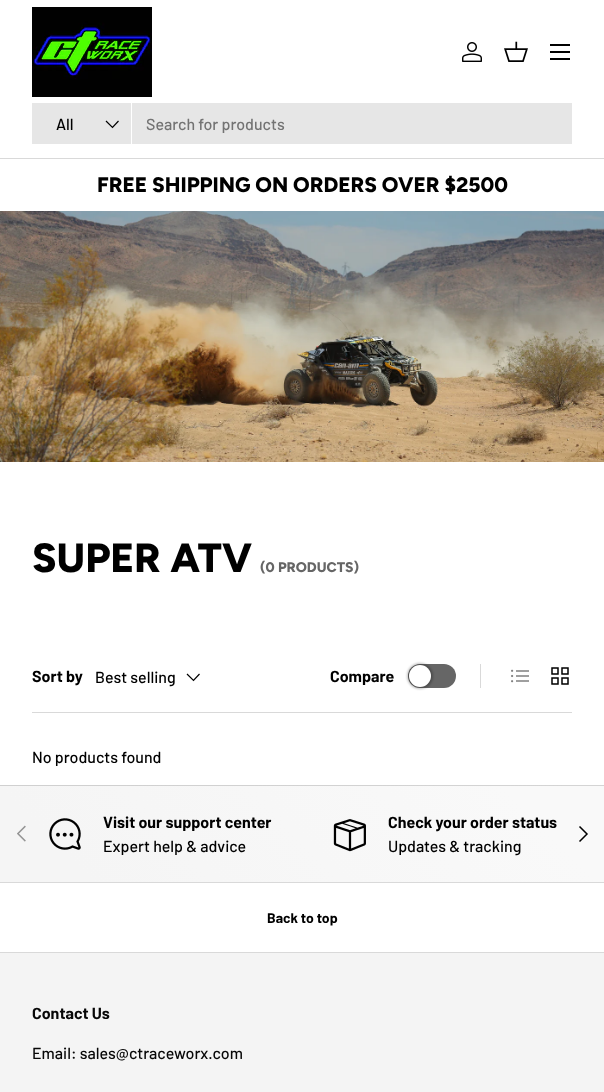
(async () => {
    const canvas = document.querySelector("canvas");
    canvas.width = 604;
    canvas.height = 1092;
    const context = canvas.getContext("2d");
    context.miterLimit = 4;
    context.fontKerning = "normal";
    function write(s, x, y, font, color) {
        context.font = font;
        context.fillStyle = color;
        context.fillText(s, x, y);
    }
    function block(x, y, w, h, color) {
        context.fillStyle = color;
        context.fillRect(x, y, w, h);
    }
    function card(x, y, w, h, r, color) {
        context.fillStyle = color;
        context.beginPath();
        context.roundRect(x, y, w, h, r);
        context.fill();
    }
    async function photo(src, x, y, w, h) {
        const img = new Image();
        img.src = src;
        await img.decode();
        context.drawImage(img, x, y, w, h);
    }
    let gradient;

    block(0, 0, 604, 1092, "rgb(255, 255, 255)");
    block(0, 158, 604, 1, "rgb(217, 217, 217)");
    await photo("media/1.png", 32, 7, 120, 90);
    await photo("media/2.png", 462, 42, 20, 20);
    await photo("media/3.png", 504, 41, 24, 21);
    block(550, 44, 20, 2, "rgb(0, 0, 0)");
    block(550, 58, 20, 2, "rgb(0, 0, 0)");
    block(550, 51, 20, 2, "rgb(0, 0, 0)");
    block(32, 103, 540, 41, "rgb(230, 230, 230)");
    block(131, 103, 1, 41, "rgb(255, 255, 255)");
    write("All", 56, 130, "500 16px Barlow", "rgb(0, 0, 0)");
    context.beginPath();
    context.moveTo(118.5, 121);
    context.lineTo(112.5, 127.5);
    context.lineTo(106, 121);
    context.strokeStyle = "rgb(0, 0, 0)";
    context.lineWidth = 1.2;
    context.stroke();
    write("Search for products", 146, 130, "500 16px Barlow", "rgb(115, 115, 115)");
    write("FREE SHIPPING ON ORDERS OVER $2500", 97, 192, "800 21px Figtree", "rgb(0, 0, 0)");
    await photo("media/4.png", 0, 211, 604, 251);
    write("SUPER ATV", 32, 572, "800 40.75px Figtree", "rgb(0, 0, 0)");
    write("(0 PRODUCTS)", 260, 572, "800 14px Figtree", "rgb(102, 102, 102)");
    block(32, 712, 540, 1, "rgb(217, 217, 217)");
    write("Sort by", 32, 682, "bold 16px Barlow", "rgb(0, 0, 0)");
    write("Best selling", 95, 683, "500 16px Barlow", "rgb(0, 0, 0)");
    context.beginPath();
    context.moveTo(199.5, 674);
    context.lineTo(193.5, 680.5);
    context.lineTo(187, 674);
    context.stroke();
    card(408, 664, 48, 24, 12, "rgb(102, 102, 102)");
    context.fillStyle = "rgba(0, 0, 0, 0.25)";
    context.filter = "blur(1px)";
    context.beginPath();
    context.roundRect(407, 663, 26, 26, 13);
    context.fill();
    context.filter = "none";
    context.fillStyle = "rgb(255, 255, 255)";
    context.beginPath();
    context.arc(420, 676, 11, 0, Math.PI * 2);
    context.fill();
    write("Compare", 330, 682, "bold 16px Barlow", "rgb(0, 0, 0)");
    block(480, 664, 1, 24, "rgb(217, 217, 217)");
    await photo("media/5.png", 511, 669, 18, 14);
    await photo("media/6.png", 551, 667, 18, 18);
    write("No products found", 32, 763, "500 16px Barlow", "rgb(0, 0, 0)");
    gradient = context.createLinearGradient(122, 912, 482, 564);
    gradient.addColorStop(0.13, "rgb(208, 208, 208)");
    gradient.addColorStop(0.86, "rgb(212, 212, 212)");
    context.fillStyle = gradient;
    context.fillRect(0, 785, 604, 1);
    gradient = context.createLinearGradient(122, 1008, 482, 660);
    gradient.addColorStop(0.13, "rgb(245, 245, 245)");
    gradient.addColorStop(0.86, "rgb(249, 249, 249)");
    context.fillStyle = gradient;
    context.fillRect(0, 786, 604, 96);
    await photo("media/7.png", 49, 818, 32, 32);
    write("Visit our support center", 103, 828, "bold 16px Barlow", "rgb(0, 0, 0)");
    write("Expert help & advice", 103, 852, "500 16px Barlow", "rgb(0, 0, 0)");
    await photo("media/8.png", 333, 819, 33, 33);
    write("Check your order status", 388, 828, "bold 16px Barlow", "rgb(0, 0, 0)");
    write("Updates & tracking", 388, 852, "500 16px Barlow", "rgb(0, 0, 0)");
    await photo("media/9.png", 17, 825, 9, 17);
    context.beginPath();
    context.moveTo(579.5, 826.5);
    context.lineTo(587, 834);
    context.lineTo(579.5, 841.5);
    context.lineWidth = 1.5;
    context.stroke();
    block(0, 882, 604, 1, "rgb(217, 217, 217)");
    block(0, 952, 604, 1, "rgb(217, 217, 217)");
    write("Back to top", 267, 923, "bold 14px Barlow", "rgb(0, 0, 0)");
    block(0, 953, 604, 139, "rgb(244, 244, 244)");
    write("Contact Us", 32, 1019, "bold 16px Barlow", "rgb(7, 7, 7)");
    write("Email: sales@ctraceworx.com", 32, 1059, "500 16px Barlow", "rgb(7, 7, 7)");
})();
